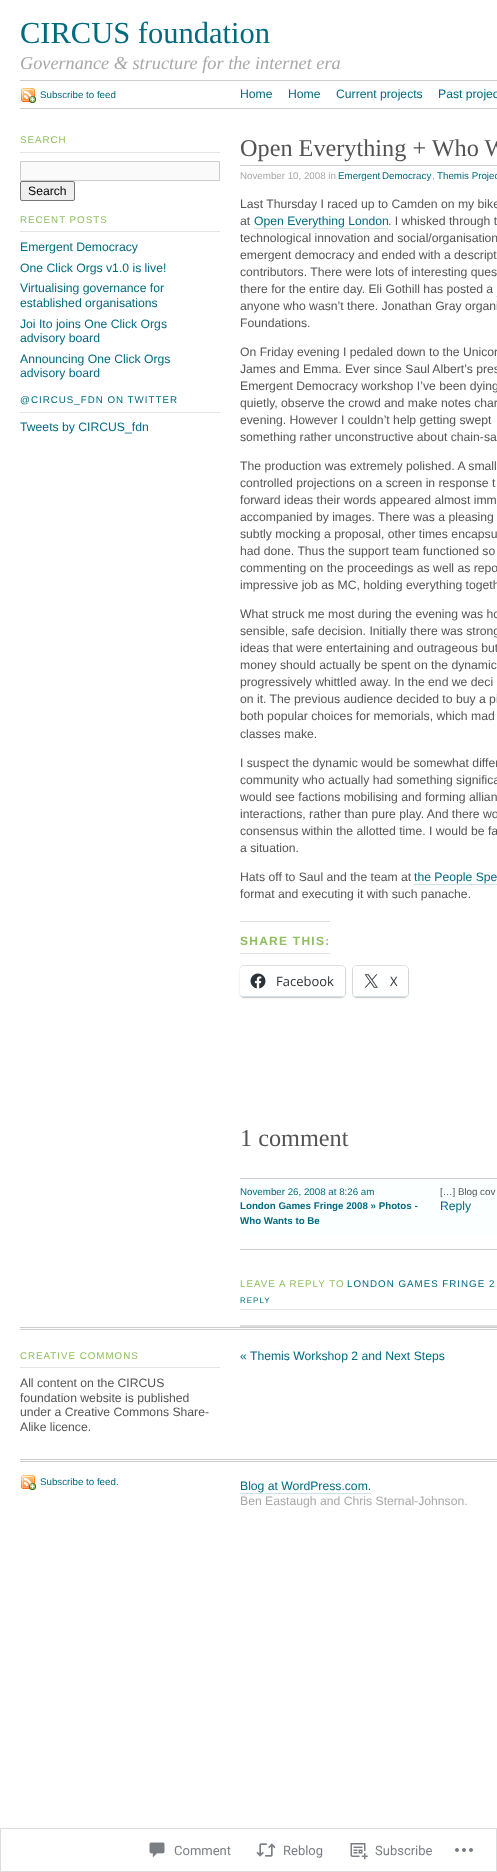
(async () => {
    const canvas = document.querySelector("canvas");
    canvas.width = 497;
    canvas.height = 1872;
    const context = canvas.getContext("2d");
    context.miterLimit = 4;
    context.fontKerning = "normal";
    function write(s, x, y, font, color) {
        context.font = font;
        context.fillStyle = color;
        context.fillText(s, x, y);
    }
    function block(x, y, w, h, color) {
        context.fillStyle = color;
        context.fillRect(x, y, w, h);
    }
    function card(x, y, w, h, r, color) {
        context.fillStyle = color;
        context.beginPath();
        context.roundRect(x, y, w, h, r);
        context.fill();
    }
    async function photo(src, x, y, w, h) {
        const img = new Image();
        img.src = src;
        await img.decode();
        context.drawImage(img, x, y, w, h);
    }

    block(0, 0, 497, 1872, "rgb(255, 255, 255)");
    block(20, 80, 477, 1, "rgb(204, 204, 204)");
    write("CIRCUS foundation", 20, 43, "30.5px Liberation Serif", "rgb(0, 106, 128)");
    write("Governance & structure for the internet era", 20, 69, "italic 18.25px Liberation Serif", "rgb(168, 168, 168)");
    block(20, 108, 477, 1, "rgb(204, 204, 204)");
    await photo("media/1.png", 21, 88, 15, 15);
    write("Subscribe to feed", 40, 98, "9.75px Liberation Sans", "rgb(0, 106, 128)");
    write("Home", 240, 98, "12.2px Liberation Sans", "rgb(0, 106, 128)");
    write("Home", 288, 98, "12.2px Liberation Sans", "rgb(0, 106, 128)");
    write("Current projects", 336, 98, "12.2px Liberation Sans", "rgb(0, 106, 128)");
    write("Past projec", 438, 98, "12.2px Liberation Sans", "rgb(0, 106, 128)");
    block(20, 152, 200, 1, "rgb(229, 229, 229)");
    context.letterSpacing = "1px";
    write("SEARCH", 20, 143, "9.75px Liberation Sans", "rgb(143, 191, 96)");
    context.fillStyle = "rgb(250, 250, 250)";
    context.beginPath();
    context.rect(20.5, 161.5, 199, 19);
    context.fill();
    context.strokeStyle = "rgb(204, 204, 204)";
    context.stroke();
    context.fillStyle = "rgb(239, 239, 239)";
    context.beginPath();
    context.roundRect(20.5, 181.5, 54, 19, 1.5);
    context.fill();
    context.strokeStyle = "rgb(118, 118, 118)";
    context.stroke();
    context.letterSpacing = "0px";
    write("Search", 28, 195, "12.2px Liberation Sans", "rgb(0, 0, 0)");
    block(20, 231, 200, 1, "rgb(229, 229, 229)");
    context.letterSpacing = "1px";
    write("RECENT POSTS", 20, 223, "9.75px Liberation Sans", "rgb(143, 191, 96)");
    context.letterSpacing = "0px";
    write("Emergent Democracy", 20, 251, "12.2px Liberation Sans", "rgb(0, 106, 128)");
    write("One Click Orgs v1.0 is live!", 20, 272, "12.2px Liberation Sans", "rgb(0, 106, 128)");
    write("Virtualising governance for", 20, 292, "12.2px Liberation Sans", "rgb(0, 106, 128)");
    write("established organisations", 20, 307, "12.2px Liberation Sans", "rgb(0, 106, 128)");
    write("Joi Ito joins One Click Orgs", 20, 328, "12.2px Liberation Sans", "rgb(0, 106, 128)");
    write("advisory board", 20, 342, "12.2px Liberation Sans", "rgb(0, 106, 128)");
    write("Announcing One Click Orgs", 20, 363, "12.2px Liberation Sans", "rgb(0, 106, 128)");
    write("advisory board", 20, 377, "12.2px Liberation Sans", "rgb(0, 106, 128)");
    block(20, 412, 200, 1, "rgb(229, 229, 229)");
    context.letterSpacing = "1px";
    write("@CIRCUS_FDN ON TWITTER", 20, 403, "9.75px Liberation Sans", "rgb(0, 106, 128)");
    context.letterSpacing = "0px";
    write("Tweets by CIRCUS_fdn", 20, 431, "12.2px Liberation Sans", "rgb(0, 106, 128)");
    block(240, 165, 257, 1, "rgb(204, 204, 204)");
    write("Open Everything + Who W", 240, 156, "24.25px Liberation Serif", "rgb(84, 84, 84)");
    write("November 10, 2008 in", 240, 179, "9.75px Liberation Sans", "rgb(168, 168, 168)");
    context.wordSpacing = "-1px";
    write("Emergent Democracy", 338, 179, "9.75px Liberation Sans", "rgb(0, 106, 128)");
    context.wordSpacing = "0px";
    write(",", 432, 179, "9.75px Liberation Sans", "rgb(168, 168, 168)");
    write("Themis Projec", 437, 179, "9.75px Liberation Sans", "rgb(0, 106, 128)");
    write("Last Thursday I raced up to Camden on my bike", 240, 208, "12.2px Liberation Sans", "rgb(84, 84, 84)");
    write("at", 240, 225, "12.2px Liberation Sans", "rgb(84, 84, 84)");
    write("Open Everything London", 254, 225, "12.2px Liberation Sans", "rgb(0, 106, 128)");
    block(254, 228, 134, 1, "rgb(207, 226, 229)");
    write(". I whisked through t", 388, 225, "12.2px Liberation Sans", "rgb(84, 84, 84)");
    write("technological innovation and social/organisation", 240, 242, "12.2px Liberation Sans", "rgb(84, 84, 84)");
    write("emergent democracy and ended with a descript", 240, 259, "12.2px Liberation Sans", "rgb(84, 84, 84)");
    write("contributors. There were lots of interesting ques", 240, 276, "12.2px Liberation Sans", "rgb(84, 84, 84)");
    write("there for the entire day. Eli Gothill has posted a", 240, 293, "12.2px Liberation Sans", "rgb(84, 84, 84)");
    block(496, 296, 1, 1, "rgb(207, 226, 229)");
    write("anyone who wasn’t there. Jonathan Gray organi", 240, 310, "12.2px Liberation Sans", "rgb(84, 84, 84)");
    write("Foundations.", 240, 327, "12.2px Liberation Sans", "rgb(84, 84, 84)");
    write("On Friday evening I pedaled down to the Unicor", 240, 356, "12.2px Liberation Sans", "rgb(84, 84, 84)");
    write("James and Emma. Ever since Saul Albert’s pres", 240, 373, "12.2px Liberation Sans", "rgb(84, 84, 84)");
    write("Emergent Democracy workshop I’ve been dying", 240, 390, "12.2px Liberation Sans", "rgb(84, 84, 84)");
    write("quietly, observe the crowd and make notes char", 240, 407, "12.2px Liberation Sans", "rgb(84, 84, 84)");
    write("evening. However I couldn’t help getting swept", 240, 424, "12.2px Liberation Sans", "rgb(84, 84, 84)");
    write("something rather unconstructive about chain-sa", 240, 441, "12.2px Liberation Sans", "rgb(84, 84, 84)");
    write("The production was extremely polished. A small", 240, 470, "12.2px Liberation Sans", "rgb(84, 84, 84)");
    write("controlled projections on a screen in response t", 240, 487, "12.2px Liberation Sans", "rgb(84, 84, 84)");
    write("forward ideas their words appeared almost imm", 240, 504, "12.2px Liberation Sans", "rgb(84, 84, 84)");
    write("accompanied by images. There was a pleasing", 240, 521, "12.2px Liberation Sans", "rgb(84, 84, 84)");
    write("subtly mocking a proposal, other times encapsu", 240, 538, "12.2px Liberation Sans", "rgb(84, 84, 84)");
    write("had done. Thus the support team functioned so", 240, 555, "12.2px Liberation Sans", "rgb(84, 84, 84)");
    write("commenting on the proceedings as well as repo", 240, 572, "12.2px Liberation Sans", "rgb(84, 84, 84)");
    write("impressive job as MC, holding everything togeth", 240, 589, "12.2px Liberation Sans", "rgb(84, 84, 84)");
    write("What struck me most during the evening was ho", 240, 618, "12.2px Liberation Sans", "rgb(84, 84, 84)");
    write("sensible, safe decision. Initially there was strong", 240, 635, "12.2px Liberation Sans", "rgb(84, 84, 84)");
    write("ideas that were entertaining and outrageous but", 240, 652, "12.2px Liberation Sans", "rgb(84, 84, 84)");
    write("money should actually be spent on the dynamic", 240, 669, "12.2px Liberation Sans", "rgb(84, 84, 84)");
    write("progressively whittled away. In the end we deci", 240, 686, "12.2px Liberation Sans", "rgb(84, 84, 84)");
    write("on it. The previous audience decided to buy a pi", 240, 703, "12.2px Liberation Sans", "rgb(84, 84, 84)");
    write("both popular choices for memorials, which mad", 240, 720, "12.2px Liberation Sans", "rgb(84, 84, 84)");
    write("classes make.", 240, 738, "12.2px Liberation Sans", "rgb(84, 84, 84)");
    write("I suspect the dynamic would be somewhat differ", 240, 767, "12.2px Liberation Sans", "rgb(84, 84, 84)");
    write("community who actually had something significa", 240, 784, "12.2px Liberation Sans", "rgb(84, 84, 84)");
    write("would see factions mobilising and forming allian", 240, 801, "12.2px Liberation Sans", "rgb(84, 84, 84)");
    write("interactions, rather than pure play. And there wo", 240, 818, "12.2px Liberation Sans", "rgb(84, 84, 84)");
    write("consensus within the allotted time. I would be fa", 240, 835, "12.2px Liberation Sans", "rgb(84, 84, 84)");
    write("a situation.", 240, 852, "12.2px Liberation Sans", "rgb(84, 84, 84)");
    write("Hats off to Saul and the team at", 240, 881, "12.2px Liberation Sans", "rgb(84, 84, 84)");
    write("the People Spe", 414, 881, "12.2px Liberation Sans", "rgb(0, 106, 128)");
    block(414, 884, 83, 1, "rgb(207, 226, 229)");
    write("format and executing it with such panache.", 240, 898, "12.2px Liberation Sans", "rgb(84, 84, 84)");
    block(240, 953, 90, 1, "rgb(229, 229, 229)");
    block(240, 921, 90, 1, "rgb(220, 220, 222)");
    context.letterSpacing = "1.25px";
    write("SHARE THIS:", 240, 945, "bold 12px Liberation Sans", "rgb(143, 191, 96)");
    context.save();
    context.beginPath();
    context.rect(240, 133, 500, 963);
    context.clip();
    context.beginPath();
    context.roundRect(239.5, 965.5, 106, 32, 4.5);
    context.strokeStyle = "rgb(224, 224, 224)";
    context.stroke();
    context.restore();
    context.fillStyle = "rgba(0, 0, 0, 0.12)";
    context.filter = "blur(1px)";
    context.beginPath();
    context.roundRect(240, 967, 105, 31, 4);
    context.fill();
    context.filter = "none";
    card(240, 966, 105, 31, 4, "rgb(255, 255, 255)");
    block(242, 996, 101, 1, "rgb(207, 226, 229)");
    await photo("media/2.png", 250, 973, 16, 16);
    context.letterSpacing = "0px";
    write("Facebook", 276, 986, "13px Open Sans", "rgb(44, 51, 56)");
    context.beginPath();
    context.roundRect(352.5, 965.5, 56, 32, 4.5);
    context.strokeStyle = "rgb(224, 224, 224)";
    context.stroke();
    context.fillStyle = "rgba(0, 0, 0, 0.12)";
    context.filter = "blur(1px)";
    context.beginPath();
    context.roundRect(353, 967, 55, 31, 4);
    context.fill();
    context.filter = "none";
    card(353, 966, 55, 31, 4, "rgb(255, 255, 255)");
    block(355, 996, 51, 1, "rgb(207, 226, 229)");
    await photo("media/3.png", 364, 974, 14, 14);
    write("X", 390, 986, "13px Open Sans", "rgb(44, 51, 56)");
    write("1 comment", 240, 1146, "24.25px Liberation Serif", "rgb(84, 84, 84)");
    block(240, 1179, 257, 56, "rgb(252, 255, 255)");
    block(240, 1178, 257, 1, "rgb(204, 204, 204)");
    write("November 26, 2008 at 8:26 am", 240, 1195, "9.75px Liberation Sans", "rgb(0, 106, 128)");
    write("London Games Fringe 2008 » Photos -", 240, 1209, "bold 9.75px Liberation Sans", "rgb(0, 106, 128)");
    write("Who Wants to Be", 240, 1224, "bold 9.75px Liberation Sans", "rgb(0, 106, 128)");
    write("[…] Blog cov", 440, 1195, "9.75px Liberation Sans", "rgb(84, 84, 84)");
    write("Reply", 440, 1210, "12.2px Liberation Sans", "rgb(0, 106, 128)");
    block(240, 1249, 257, 1, "rgb(204, 204, 204)");
    block(240, 1309, 257, 1, "rgb(229, 229, 229)");
    context.letterSpacing = "1px";
    write("LEAVE A REPLY TO", 240, 1287, "9.75px Liberation Sans", "rgb(143, 191, 96)");
    write("LONDON GAMES FRINGE 2", 347, 1287, "9.75px Liberation Sans", "rgb(0, 106, 128)");
    write("REPLY", 240, 1303, "8px Liberation Sans", "rgb(0, 106, 128)");
    block(240, 1325, 257, 2, "rgb(220, 220, 222)");
    block(20, 1327, 477, 1, "rgb(204, 204, 204)");
    block(20, 1329, 477, 1, "rgb(204, 204, 204)");
    block(20, 1367, 200, 1, "rgb(229, 229, 229)");
    write("CREATIVE COMMONS", 20, 1359, "9.75px Liberation Sans", "rgb(143, 191, 96)");
    context.letterSpacing = "0px";
    write("All content on the CIRCUS", 20, 1387, "12.2px Liberation Sans", "rgb(84, 84, 84)");
    write("foundation website is published", 20, 1402, "12.2px Liberation Sans", "rgb(84, 84, 84)");
    write("under a Creative Commons Share-", 20, 1416, "12.2px Liberation Sans", "rgb(84, 84, 84)");
    write("Alike licence.", 20, 1431, "12.2px Liberation Sans", "rgb(84, 84, 84)");
    write("« Themis Workshop 2 and Next Steps", 240, 1360, "12.2px Liberation Sans", "rgb(0, 106, 128)");
    block(20, 1459, 477, 1, "rgb(204, 204, 204)");
    block(20, 1461, 477, 1, "rgb(204, 204, 204)");
    await photo("media/1.png", 21, 1475, 15, 15);
    write("Subscribe to feed.", 40, 1485, "9.75px Liberation Sans", "rgb(0, 106, 128)");
    write("Blog at WordPress.com.", 240, 1490, "12.2px Liberation Sans", "rgb(0, 106, 128)");
    block(240, 1493, 131, 1, "rgb(207, 226, 229)");
    write("Ben Eastaugh and Chris Sternal-Johnson.", 240, 1505, "12.2px Liberation Sans", "rgb(168, 168, 168)");
    context.strokeStyle = "rgb(221, 221, 223)";
    context.strokeRect(0.5, 1828.5, 496, 43);
    await photo("media/4.png", 149, 1842, 16, 16);
    write("Comment", 174, 1855, "13px Roboto", "rgb(123, 127, 133)");
    await photo("media/5.png", 256, 1843, 20, 14);
    write("Reblog", 283, 1855, "13px Roboto", "rgb(123, 127, 133)");
    await photo("media/6.png", 350, 1843, 18, 17);
    write("Subscribe", 375, 1855, "13px Roboto", "rgb(123, 127, 133)");
    await photo("media/7.png", 455, 1848, 18, 4);
})();
